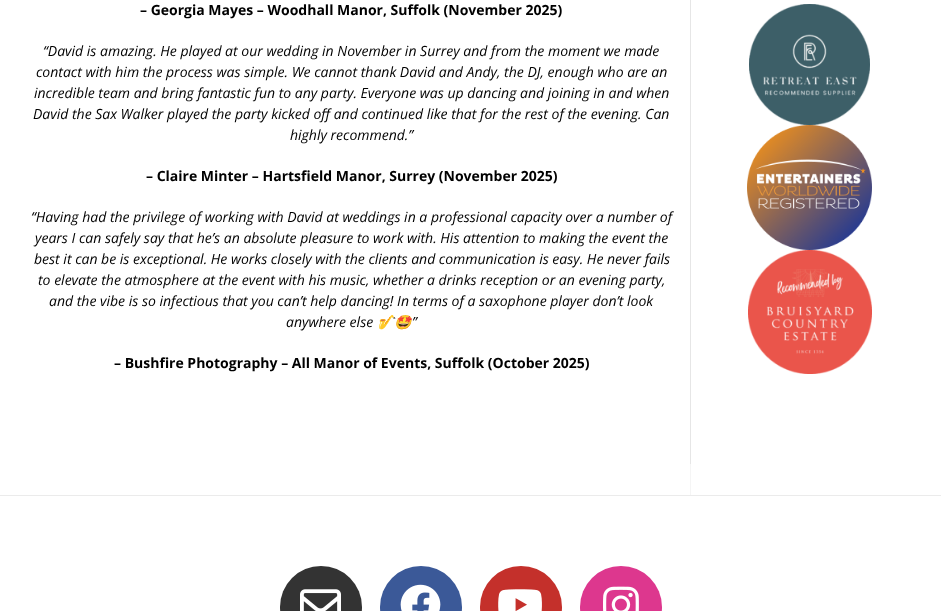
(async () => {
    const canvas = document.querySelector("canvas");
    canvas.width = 941;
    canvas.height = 611;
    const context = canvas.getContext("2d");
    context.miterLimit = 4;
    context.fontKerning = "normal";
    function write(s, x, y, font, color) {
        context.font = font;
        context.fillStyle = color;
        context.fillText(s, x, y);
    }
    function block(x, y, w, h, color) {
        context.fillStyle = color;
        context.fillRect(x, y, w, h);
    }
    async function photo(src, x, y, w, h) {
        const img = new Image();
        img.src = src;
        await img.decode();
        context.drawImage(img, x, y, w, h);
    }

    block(0, 0, 941, 611, "rgb(255, 255, 255)");
    block(690, 0, 1, 464, "rgb(230, 230, 230)");
    write("– Georgia Mayes – Woodhall Manor, Suffolk (November 2025)", 140, 15, "bold 14px Open Sans", "rgb(0, 0, 0)");
    write("“David is amazing. He played at our wedding in November in Surrey and from the moment we made", 43, 56, "italic 14px Open Sans", "rgb(0, 0, 0)");
    write("contact with him the process was simple. We cannot thank David and Andy, the DJ, enough who are an", 36, 77, "italic 14px Open Sans", "rgb(0, 0, 0)");
    write("incredible team and bring fantastic fun to any party. Everyone was up dancing and joining in and when", 34, 98, "italic 14px Open Sans", "rgb(0, 0, 0)");
    write("David the Sax Walker played the party kicked off and continued like that for the rest of the evening. Can", 33, 119, "italic 14px Open Sans", "rgb(0, 0, 0)");
    write("highly recommend.”", 290, 140, "italic 14px Open Sans", "rgb(0, 0, 0)");
    write("– Claire Minter – Hartsfield Manor, Surrey (November 2025)", 146, 181, "bold 14px Open Sans", "rgb(0, 0, 0)");
    write("“Having had the privilege of working with David at weddings in a professional capacity over a number of", 31, 222, "italic 14px Open Sans", "rgb(0, 0, 0)");
    write("years I can safely say that he’s an absolute pleasure to work with. His attention to making the event the", 35, 243, "italic 14px Open Sans", "rgb(0, 0, 0)");
    write("best it can be is exceptional. He works closely with the clients and communication is easy. He never fails", 34, 264, "italic 14px Open Sans", "rgb(0, 0, 0)");
    write("to elevate the atmosphere at the event with his music, whether a drinks reception or an evening party,", 38, 285, "italic 14px Open Sans", "rgb(0, 0, 0)");
    write("and the vibe is so infectious that you can’t help dancing! In terms of a saxophone player don’t look", 49, 306, "italic 14px Open Sans", "rgb(0, 0, 0)");
    write("anywhere else", 286, 327, "italic 14px Open Sans", "rgb(0, 0, 0)");
    write("🎷🤩", 377, 327, "italic 14px Noto Color Emoji", "rgb(0, 0, 0)");
    write("”", 412, 327, "italic 14px Open Sans", "rgb(0, 0, 0)");
    write("– Bushfire Photography – All Manor of Events, Suffolk (October 2025)", 114, 368, "bold 14px Open Sans", "rgb(0, 0, 0)");
    block(690, 464, 1, 31, "rgb(245, 245, 245)");
    await photo("media/1.png", 749, 4, 121, 121);
    await photo("media/2.png", 747, 125, 125, 125);
    await photo("media/3.png", 748, 250, 124, 124);
    block(0, 495, 941, 1, "rgb(235, 235, 235)");
    context.fillStyle = "rgb(51, 51, 51)";
    context.beginPath();
    context.arc(321, 607, 41, 0, Math.PI * 2);
    context.fill();
    await photo("media/4.png", 300, 589, 41, 22);
    context.fillStyle = "rgb(59, 89, 152)";
    context.beginPath();
    context.arc(421, 607, 41, 0, Math.PI * 2);
    context.fill();
    await photo("media/5.png", 400, 584, 41, 27);
    context.fillStyle = "rgb(196, 48, 43)";
    context.beginPath();
    context.arc(521, 607, 41, 0, Math.PI * 2);
    context.fill();
    await photo("media/6.png", 498, 589, 44, 22);
    context.fillStyle = "rgb(221, 55, 142)";
    context.beginPath();
    context.arc(621, 607, 41, 0, Math.PI * 2);
    context.fill();
    await photo("media/7.png", 603, 586, 36, 25);
})();
